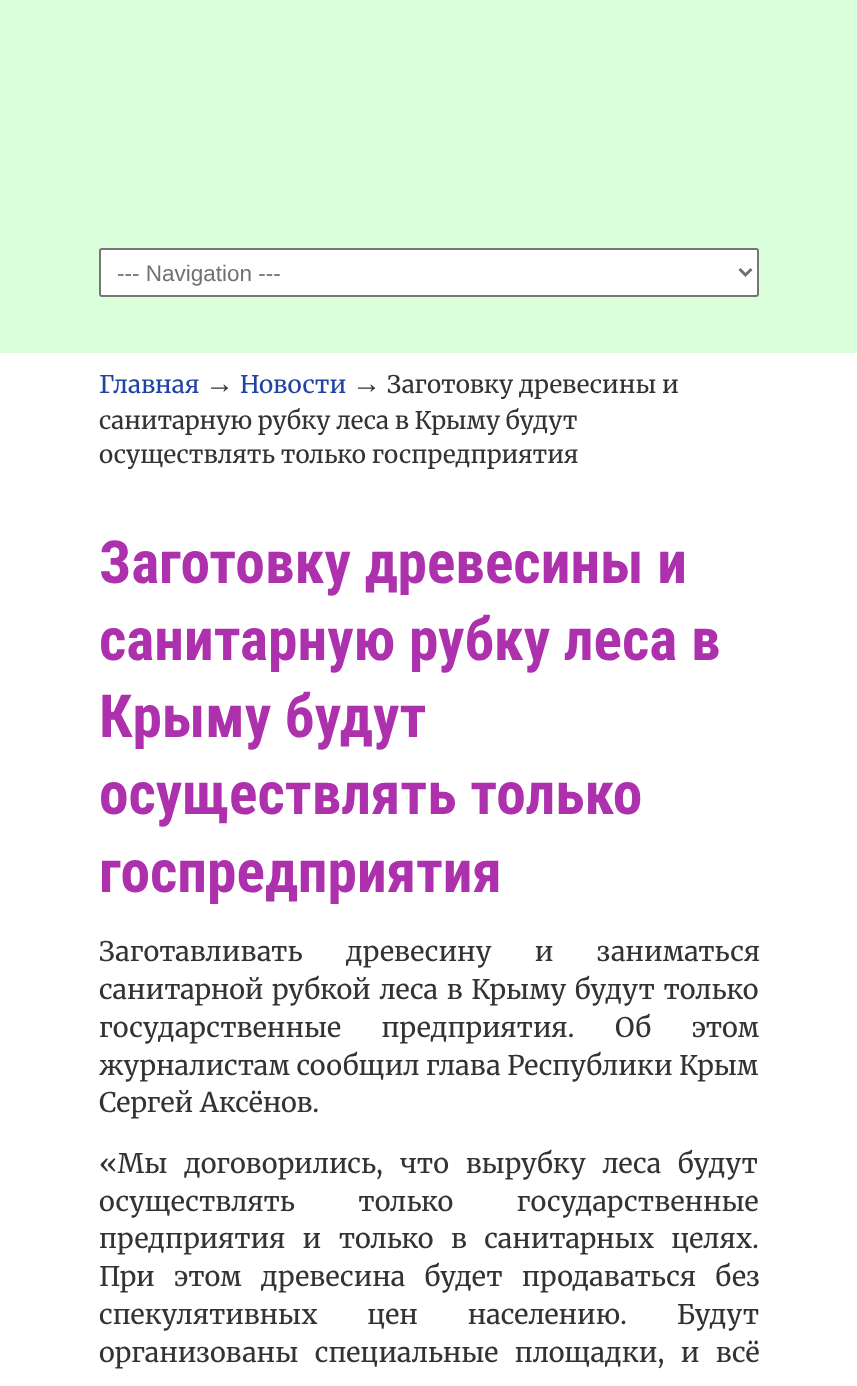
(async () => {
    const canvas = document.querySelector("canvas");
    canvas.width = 857;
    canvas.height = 1386;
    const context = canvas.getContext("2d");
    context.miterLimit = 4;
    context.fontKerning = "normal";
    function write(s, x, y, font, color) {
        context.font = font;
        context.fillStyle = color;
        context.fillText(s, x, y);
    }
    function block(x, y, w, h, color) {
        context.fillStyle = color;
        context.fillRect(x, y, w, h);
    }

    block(0, 0, 857, 1386, "rgb(255, 255, 255)");
    block(0, 0, 857, 353, "rgb(219, 254, 219)");
    context.fillStyle = "rgb(255, 255, 255)";
    context.beginPath();
    context.roundRect(100, 249, 658, 47, 2);
    context.fill();
    context.strokeStyle = "rgb(118, 118, 118)";
    context.lineWidth = 2;
    context.stroke();
    context.beginPath();
    context.moveTo(739.5, 269);
    context.lineTo(745.5, 275);
    context.lineTo(751.5, 269);
    context.strokeStyle = "rgb(113, 113, 113)";
    context.lineWidth = 3;
    context.stroke();
    write("--- Navigation ---", 117, 281, "22.5px Liberation Sans", "rgb(113, 113, 113)");
    write("Главная", 99, 393, "300 24.25px Merriweather", "rgb(31, 68, 163)");
    write("→", 205, 393, "29px Liberation Serif", "rgb(51, 51, 51)");
    write("Новости", 240, 393, "300 24.25px Merriweather", "rgb(31, 68, 163)");
    write("→", 352, 393, "29px Liberation Serif", "rgb(51, 51, 51)");
    write("Заготовку древесины и", 387, 393, "300 24.25px Merriweather", "rgb(51, 51, 51)");
    write("санитарную рубку леса в Крыму будут", 99, 429, "300 24.25px Merriweather", "rgb(51, 51, 51)");
    write("осуществлять только госпредприятия", 99, 463, "300 24.25px Merriweather", "rgb(51, 51, 51)");
    write("Заготовку древесины и", 99, 583, "bold 59.4px Roboto Condensed", "rgb(173, 48, 173)");
    write("санитарную рубку леса в", 99, 660, "bold 59.4px Roboto Condensed", "rgb(173, 48, 173)");
    write("Крыму будут", 99, 737, "bold 59.4px Roboto Condensed", "rgb(173, 48, 173)");
    write("осуществлять только", 99, 814, "bold 59.4px Roboto Condensed", "rgb(173, 48, 173)");
    write("госпредприятия", 99, 892, "bold 59.4px Roboto Condensed", "rgb(173, 48, 173)");
    context.wordSpacing = "37px";
    write("Заготавливать древесину и заниматься", 99, 961, "300 27px Merriweather", "rgb(51, 51, 51)");
    context.wordSpacing = "2.25px";
    write("санитарной рубкой леса в Крыму будут только", 99, 999, "300 27px Merriweather", "rgb(51, 51, 51)");
    context.wordSpacing = "34px";
    write("государственные предприятия. Об этом", 99, 1037, "300 27px Merriweather", "rgb(51, 51, 51)");
    context.wordSpacing = "0px";
    write("журналистам сообщил глава Республики Крым", 99, 1075, "300 27px Merriweather", "rgb(51, 51, 51)");
    write("Сергей Аксёнов.", 99, 1112, "300 27px Merriweather", "rgb(51, 51, 51)");
    context.wordSpacing = "10.5px";
    write("«Мы договорились, что вырубку леса будут", 99, 1173, "300 27px Merriweather", "rgb(51, 51, 51)");
    context.wordSpacing = "57px";
    write("осуществлять только государственные", 99, 1211, "300 27px Merriweather", "rgb(51, 51, 51)");
    context.wordSpacing = "11px";
    write("предприятия и только в санитарных целях.", 99, 1248, "300 27px Merriweather", "rgb(51, 51, 51)");
    context.wordSpacing = "13px";
    write("При этом древесина будет продаваться без", 99, 1286, "300 27px Merriweather", "rgb(51, 51, 51)");
    context.wordSpacing = "43.5px";
    write("спекулятивных цен населению. Будут", 99, 1324, "300 27px Merriweather", "rgb(51, 51, 51)");
    context.wordSpacing = "10px";
    write("организованы специальные площадки, и всё", 99, 1362, "300 27px Merriweather", "rgb(51, 51, 51)");
})();
